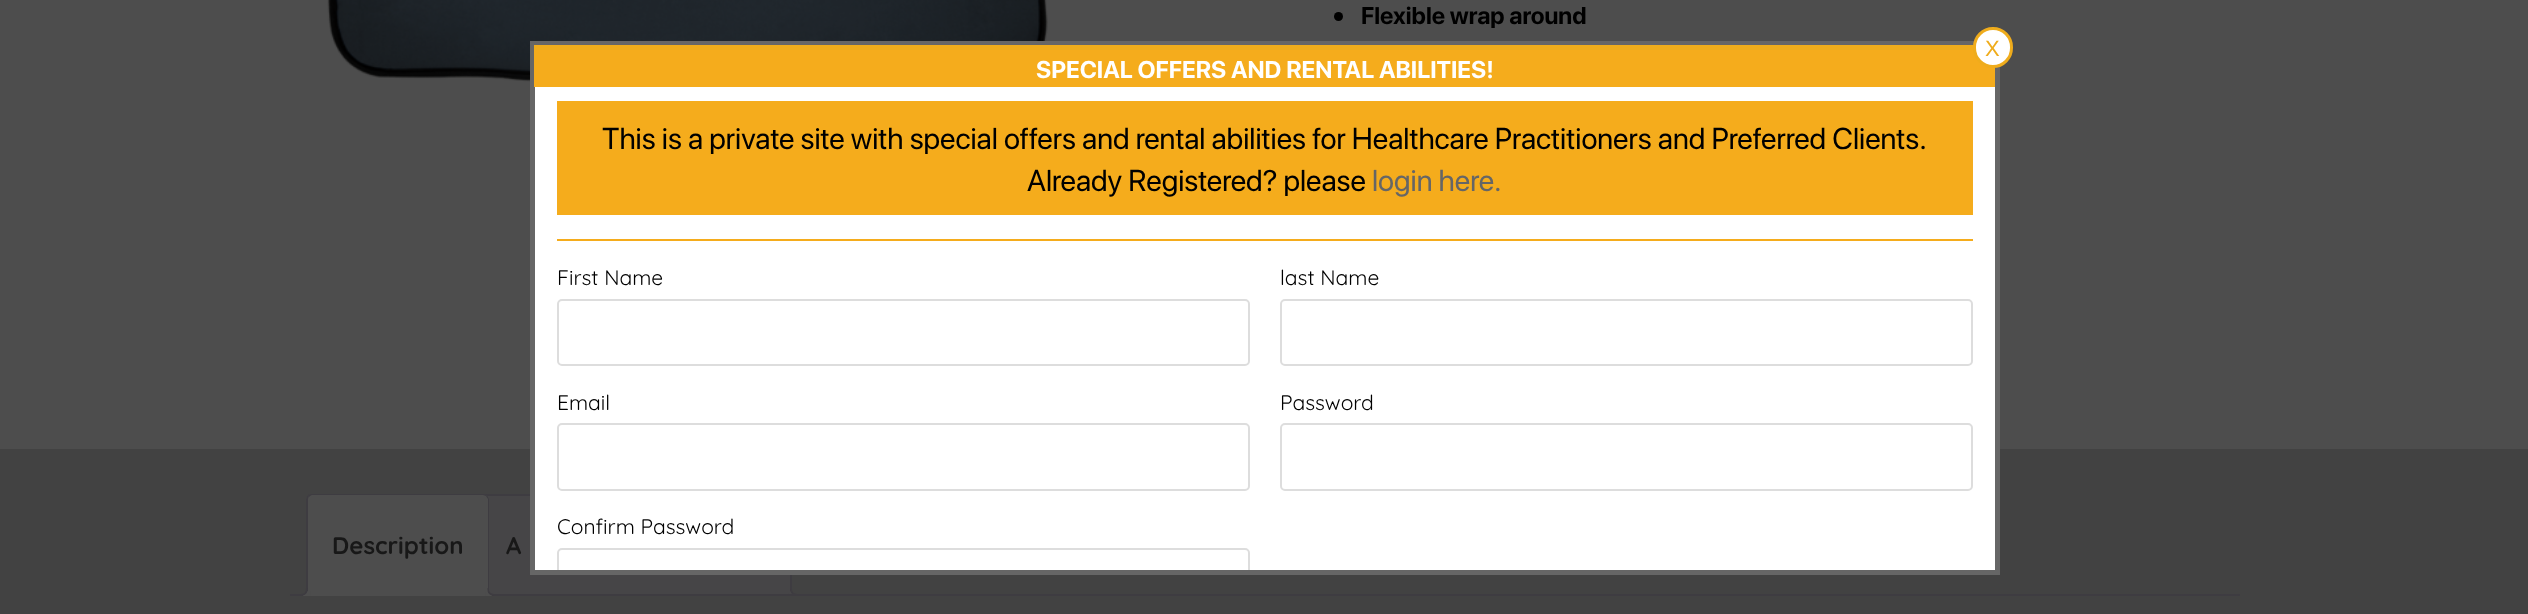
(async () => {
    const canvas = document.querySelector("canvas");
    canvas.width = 2528;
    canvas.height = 614;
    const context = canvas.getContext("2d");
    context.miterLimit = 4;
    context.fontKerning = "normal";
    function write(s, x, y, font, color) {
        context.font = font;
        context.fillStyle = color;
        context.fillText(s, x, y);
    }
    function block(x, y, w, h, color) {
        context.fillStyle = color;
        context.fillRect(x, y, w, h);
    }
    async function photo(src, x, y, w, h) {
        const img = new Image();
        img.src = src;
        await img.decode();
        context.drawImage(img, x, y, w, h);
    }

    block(0, 0, 2528, 614, "rgb(77, 77, 77)");
    await photo("media/1.png", 327, 0, 721, 82);
    context.fillStyle = "rgb(0, 0, 0)";
    context.beginPath();
    context.arc(1338.5, 16.5, 4.5, 0, Math.PI * 2);
    context.fill();
    write("Flexible wrap around", 1361, 24, "bold 24px SF Pro Display", "rgb(0, 0, 0)");
    block(0, 449, 2528, 165, "rgb(66, 66, 66)");
    context.fillStyle = "rgb(70, 69, 71)";
    context.beginPath();
    context.roundRect(481, 495, 310, 100, [5, 5, 0, 0]);
    context.fill();
    context.strokeStyle = "rgb(62, 60, 65)";
    context.lineWidth = 2;
    context.stroke();
    context.save();
    context.beginPath();
    context.rect(290, 494, 1950, 102);
    context.clip();
    context.beginPath();
    context.moveTo(788, 591);
    context.bezierCurveTo(788, 596, 789.5, 599, 795, 599);
    context.lineTo(795, 595.5);
    context.bezierCurveTo(793, 595, 791, 593, 790.5, 591);
    context.closePath();
    context.fill();
    context.restore();
    context.fillStyle = "rgb(62, 60, 65)";
    context.beginPath();
    context.moveTo(790.5, 588);
    context.lineTo(798, 588);
    context.lineTo(798, 595.5);
    context.bezierCurveTo(794, 595.5, 790.5, 594, 790.5, 589.5);
    context.closePath();
    context.moveTo(792, 588);
    context.lineTo(798, 588);
    context.lineTo(798, 594);
    context.bezierCurveTo(795, 594, 792, 593, 792, 589.5);
    context.closePath();
    context.fill("evenodd");
    block(290, 594, 1950, 2, "rgb(62, 60, 65)");
    context.fillStyle = "rgb(77, 77, 77)";
    context.beginPath();
    context.roundRect(306, 494, 183, 102, [6, 6, 0, 0]);
    context.fill();
    context.fillStyle = "rgb(62, 60, 65)";
    context.beginPath();
    context.moveTo(312, 494);
    context.bezierCurveTo(311, 494, 309, 494, 308, 495);
    context.lineTo(309, 497);
    context.bezierCurveTo(310, 496, 311, 495, 312, 495);
    context.lineTo(483, 495);
    context.lineTo(486, 496);
    context.lineTo(487, 495);
    context.bezierCurveTo(486, 494, 484, 494, 483, 494);
    context.closePath();
    context.fill();
    context.beginPath();
    context.moveTo(487, 495);
    context.lineTo(489, 499);
    context.lineTo(489, 596);
    context.lineTo(488, 594);
    context.lineTo(488, 499);
    context.lineTo(486, 496);
    context.closePath();
    context.fill();
    context.fillStyle = "rgb(77, 77, 77)";
    context.beginPath();
    context.moveTo(489, 596);
    context.lineTo(306, 596);
    context.lineTo(308, 594);
    context.lineTo(488, 594);
    context.closePath();
    context.fill();
    context.fillStyle = "rgb(62, 60, 65)";
    context.beginPath();
    context.moveTo(306, 596);
    context.lineTo(308, 594);
    context.lineTo(308, 500);
    context.bezierCurveTo(308, 499, 308, 497, 309, 497);
    context.lineTo(308, 495);
    context.bezierCurveTo(307, 496, 306, 498, 306, 500);
    context.closePath();
    context.fill();
    write("Description", 332, 554, "bold 24px Quicksand", "rgb(24, 24, 24)");
    context.save();
    context.beginPath();
    context.rect(290, 494, 1950, 102);
    context.clip();
    context.fillStyle = "rgb(77, 77, 77)";
    context.beginPath();
    context.moveTo(303, 595.5);
    context.lineTo(303, 599);
    context.bezierCurveTo(309, 599, 311, 597, 311, 591);
    context.lineTo(307.5, 591);
    context.bezierCurveTo(307, 593, 305, 595, 303, 595.5);
    context.closePath();
    context.fill();
    context.restore();
    context.fillStyle = "rgb(62, 60, 65)";
    context.beginPath();
    context.moveTo(300, 588);
    context.lineTo(307.5, 588);
    context.bezierCurveTo(307.5, 593.5, 305.5, 595.5, 300, 595.5);
    context.closePath();
    context.moveTo(300, 588);
    context.lineTo(306, 588);
    context.bezierCurveTo(306, 592.5, 304.5, 594, 300, 594);
    context.closePath();
    context.fill("evenodd");
    context.save();
    context.beginPath();
    context.rect(290, 494, 1950, 102);
    context.clip();
    context.fillStyle = "rgb(77, 77, 77)";
    context.beginPath();
    context.moveTo(485, 591);
    context.bezierCurveTo(485, 596, 486.5, 599, 492, 599);
    context.lineTo(492, 595.5);
    context.bezierCurveTo(490, 595, 488, 593, 487.5, 591);
    context.closePath();
    context.fill();
    context.restore();
    context.beginPath();
    context.moveTo(487.5, 588);
    context.lineTo(495, 588);
    context.lineTo(495, 595.5);
    context.bezierCurveTo(491, 595.5, 487.5, 594, 487.5, 589.5);
    context.closePath();
    context.moveTo(489, 588);
    context.lineTo(495, 588);
    context.lineTo(495, 594);
    context.bezierCurveTo(492, 594, 489, 593, 489, 589.5);
    context.closePath();
    context.fill("evenodd");
    write("A", 506, 554, "bold 24px Quicksand", "rgb(24, 24, 24)");
    block(535, 87, 1460, 483, "rgb(255, 255, 255)");
    context.strokeStyle = "rgb(102, 102, 102)";
    context.lineWidth = 5;
    context.strokeRect(532.5, 43.5, 1465, 529);
    block(534, 50, 1461, 37, "rgb(245, 172, 28)");
    block(534, 45, 1440, 5, "rgb(239, 172, 28)");
    context.fillStyle = "rgb(255, 255, 255)";
    context.beginPath();
    context.roundRect(1974.5, 28.5, 37, 38, 18.5);
    context.fill();
    context.strokeStyle = "rgb(239, 172, 28)";
    context.lineWidth = 3;
    context.stroke();
    write("X", 1985, 56, "22px Liberation Sans", "rgb(239, 172, 28)");
    write("SPECIAL OFFERS AND RENTAL ABILITIES!", 1036, 78, "bold 24px SF Pro Display", "rgb(255, 255, 255)");
    block(557, 101, 1416, 114, "rgb(245, 172, 28)");
    write("This is a private site with special offers and rental abilities for Healthcare Practitioners and Preferred Clients.", 602, 149, "30px SF Pro Display", "rgb(0, 0, 0)");
    write("Already Registered? please", 1027, 191, "30px SF Pro Display", "rgb(0, 0, 0)");
    write("login here.", 1372, 191, "30px SF Pro Display", "rgb(102, 102, 102)");
    block(557, 239, 1416, 2, "rgb(245, 172, 28)");
    write("First Name", 557, 285, "21px Quicksand", "rgb(0, 0, 0)");
    context.beginPath();
    context.roundRect(558, 300, 691, 65, 4);
    context.strokeStyle = "rgb(221, 221, 221)";
    context.lineWidth = 2;
    context.stroke();
    write("last Name", 1280, 285, "21px Quicksand", "rgb(0, 0, 0)");
    context.beginPath();
    context.roundRect(1281, 300, 691, 65, 4);
    context.stroke();
    write("Email", 557, 410, "21px Quicksand", "rgb(0, 0, 0)");
    context.beginPath();
    context.roundRect(558, 424, 691, 66, 4);
    context.stroke();
    write("Password", 1280, 410, "21px Quicksand", "rgb(0, 0, 0)");
    context.beginPath();
    context.roundRect(1281, 424, 691, 66, 4);
    context.stroke();
    write("Confirm Password", 557, 534, "21px Quicksand", "rgb(0, 0, 0)");
    context.save();
    context.beginPath();
    context.rect(534, 45, 1461, 525);
    context.clip();
    context.beginPath();
    context.roundRect(558, 549, 691, 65, 4);
    context.stroke();
    context.restore();
})();
